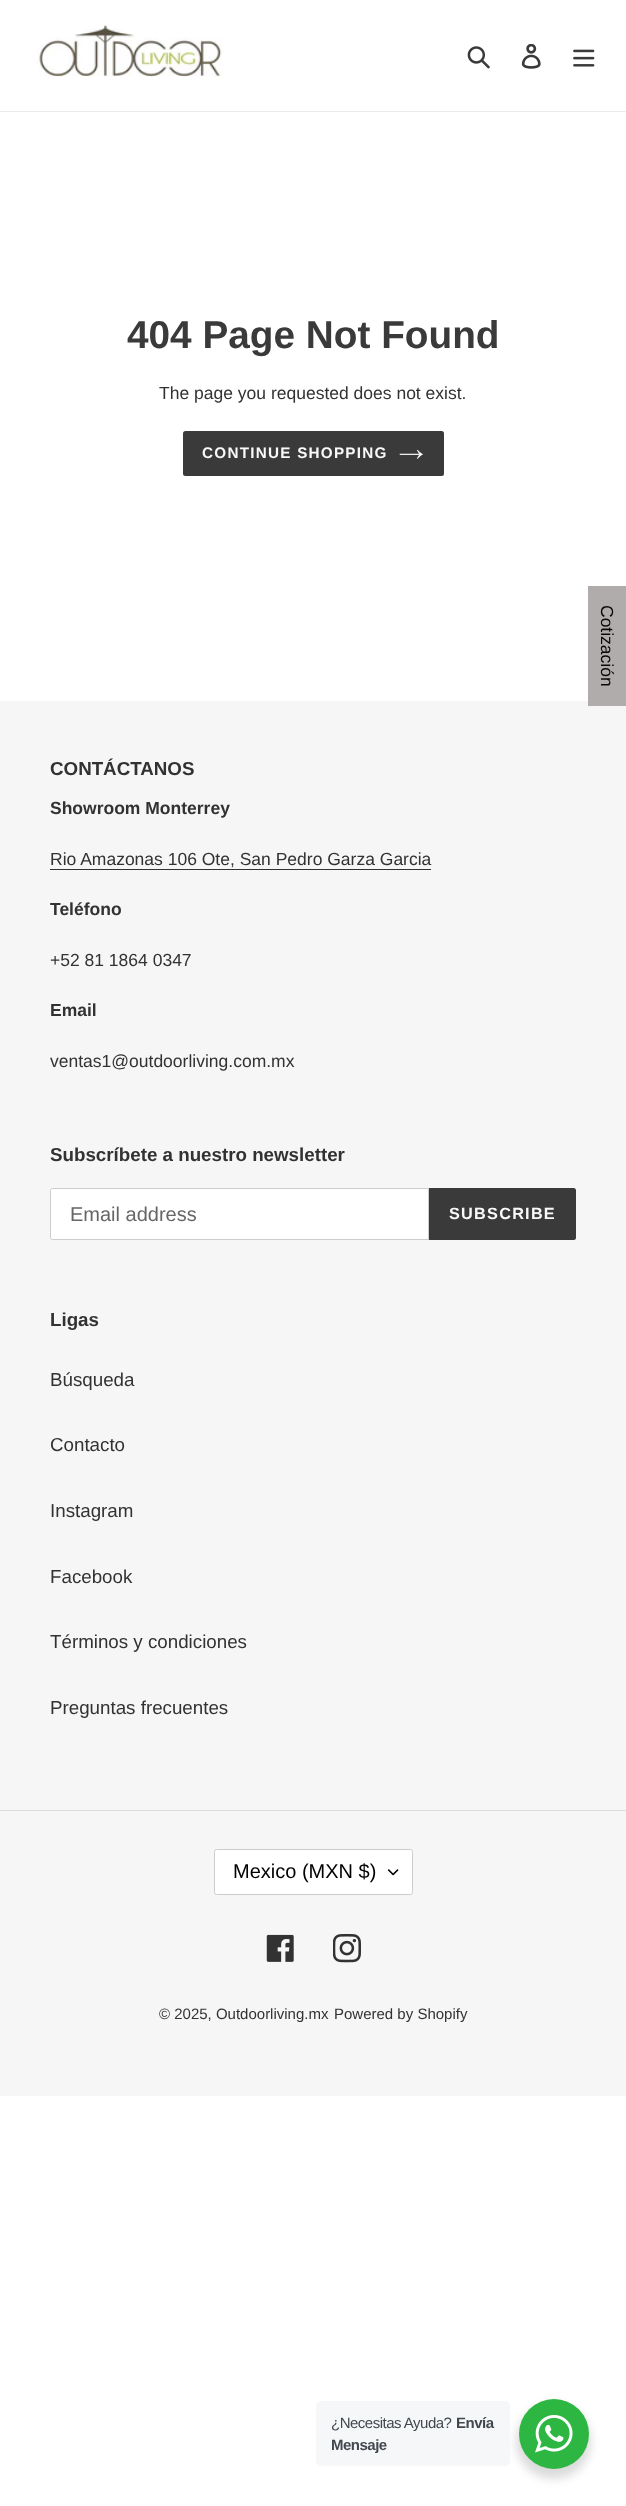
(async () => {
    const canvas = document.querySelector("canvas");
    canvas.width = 626;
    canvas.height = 2506;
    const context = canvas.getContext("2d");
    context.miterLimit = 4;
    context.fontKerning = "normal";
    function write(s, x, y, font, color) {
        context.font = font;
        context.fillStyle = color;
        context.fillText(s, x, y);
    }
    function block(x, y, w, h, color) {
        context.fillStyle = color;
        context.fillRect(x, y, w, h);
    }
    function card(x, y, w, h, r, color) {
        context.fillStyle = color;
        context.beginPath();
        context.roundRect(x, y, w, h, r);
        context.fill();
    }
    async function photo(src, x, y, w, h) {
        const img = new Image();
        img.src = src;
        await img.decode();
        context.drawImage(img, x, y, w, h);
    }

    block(0, 0, 626, 2506, "rgb(255, 255, 255)");
    block(0, 111, 626, 1, "rgb(235, 235, 235)");
    await photo("media/1.png", 37, 24, 185, 53);
    await photo("media/2.png", 467, 46, 23, 23);
    await photo("media/3.png", 521, 44, 20, 25);
    await photo("media/4.png", 573, 49, 22, 18);
    write("404 Page Not Found", 127, 348, "bold 38.75px Liberation Sans", "rgb(58, 58, 58)");
    write("The page you requested does not exist.", 159, 399, "17.5px Liberation Sans", "rgb(51, 50, 50)");
    card(183, 431, 261, 45, 2.5, "rgb(58, 58, 58)");
    context.letterSpacing = "1.25px";
    write("CONTINUE SHOPPING", 202, 458, "bold 15.25px Liberation Sans", "rgb(249, 249, 249)");
    await photo("media/5.png", 399, 449, 24, 10);
    block(0, 701, 626, 1395, "rgb(246, 246, 246)");
    context.letterSpacing = "0px";
    write("CONTÁCTANOS", 50, 775, "bold 18.75px Liberation Sans", "rgb(51, 50, 50)");
    write("Showroom Monterrey", 50, 814, "bold 17.5px Liberation Sans", "rgb(51, 50, 50)");
    write("Rio Amazonas 106 Ote, San Pedro Garza Garcia", 50, 865, "17.5px Liberation Sans", "rgb(51, 50, 50)");
    block(50, 869, 381, 1, "rgb(51, 50, 50)");
    write("Teléfono", 50, 915, "bold 17.5px Liberation Sans", "rgb(51, 50, 50)");
    write("+52 81 1864 0347", 50, 966, "17.5px Liberation Sans", "rgb(51, 50, 50)");
    write("Email", 50, 1016, "bold 17.5px Liberation Sans", "rgb(51, 50, 50)");
    write("ventas1@outdoorliving.com.mx", 50, 1067, "17.5px Liberation Sans", "rgb(51, 50, 50)");
    write("Subscríbete a nuestro newsletter", 50, 1161, "bold 18.75px Liberation Sans", "rgb(51, 50, 50)");
    context.fillStyle = "rgb(255, 255, 255)";
    context.beginPath();
    context.roundRect(50.5, 1188.5, 378, 51, [2, 0, 0, 2]);
    context.fill();
    context.strokeStyle = "rgb(204, 204, 204)";
    context.stroke();
    write("Email address", 70, 1221, "20px Liberation Sans", "rgb(102, 102, 102)");
    context.fillStyle = "rgb(58, 58, 58)";
    context.beginPath();
    context.roundRect(429, 1188, 147, 52, [0, 2.5, 2.5, 0]);
    context.fill();
    context.letterSpacing = "1.25px";
    write("SUBSCRIBE", 449, 1219, "bold 16.25px Liberation Sans", "rgb(249, 249, 249)");
    context.letterSpacing = "0px";
    write("Ligas", 50, 1326, "bold 18.75px Liberation Sans", "rgb(51, 50, 50)");
    write("Búsqueda", 50, 1386, "18.75px Liberation Sans", "rgb(51, 50, 50)");
    write("Contacto", 50, 1451, "18.75px Liberation Sans", "rgb(51, 50, 50)");
    write("Instagram", 50, 1517, "18.75px Liberation Sans", "rgb(51, 50, 50)");
    write("Facebook", 50, 1583, "18.75px Liberation Sans", "rgb(51, 50, 50)");
    write("Términos y condiciones", 50, 1648, "18.75px Liberation Sans", "rgb(51, 50, 50)");
    write("Preguntas frecuentes", 50, 1714, "18.75px Liberation Sans", "rgb(51, 50, 50)");
    block(0, 1810, 626, 1, "rgb(221, 221, 221)");
    card(214, 1849, 199, 46, 2.5, "rgb(255, 255, 255)");
    await photo("media/6.png", 388, 1869, 11, 7);
    context.beginPath();
    context.roundRect(214.5, 1849.5, 198, 45, 2);
    context.stroke();
    write("Mexico (MXN $)", 233, 1878, "20px Liberation Sans", "rgb(0, 0, 0)");
    await photo("media/7.png", 266, 1934, 28, 28);
    await photo("media/8.png", 333, 1934, 28, 29);
    write("© 2025, Outdoorliving.mx", 159, 2019, "15px Liberation Sans", "rgb(51, 50, 50)");
    write("Powered by Shopify", 334, 2019, "15px Liberation Sans", "rgb(51, 50, 50)");
    block(588, 586, 38, 120, "rgb(177, 172, 172)");
    context.font = "17.5px Liberation Sans";
    context.fillStyle = "rgb(8, 8, 8)";
    context.save();
    context.translate(601, 605);
    context.rotate(90 * Math.PI / 180);
    context.fillText("Cotización", 0, 0);
    context.restore();
    context.fillStyle = "rgba(0, 0, 0, 0.14)";
    context.filter = "blur(5px)";
    context.beginPath();
    context.roundRect(516, 2404, 75, 75, 37.5);
    context.fill();
    context.filter = "none";
    card(316, 2401, 194, 65, 5, "rgb(245, 247, 249)");
    context.letterSpacing = "-0.5px";
    write("¿Necesitas Ayuda?", 331, 2428, "15px Liberation Sans", "rgb(67, 71, 78)");
    write("Envía", 456, 2428, "bold 15px Liberation Sans", "rgb(67, 71, 78)");
    write("Mensaje", 331, 2450, "bold 15px Liberation Sans", "rgb(67, 71, 78)");
    context.fillStyle = "rgb(45, 183, 66)";
    context.beginPath();
    context.arc(554, 2434, 35, 0, Math.PI * 2);
    context.fill();
    await photo("media/9.png", 535, 2415, 38, 38);
})();
